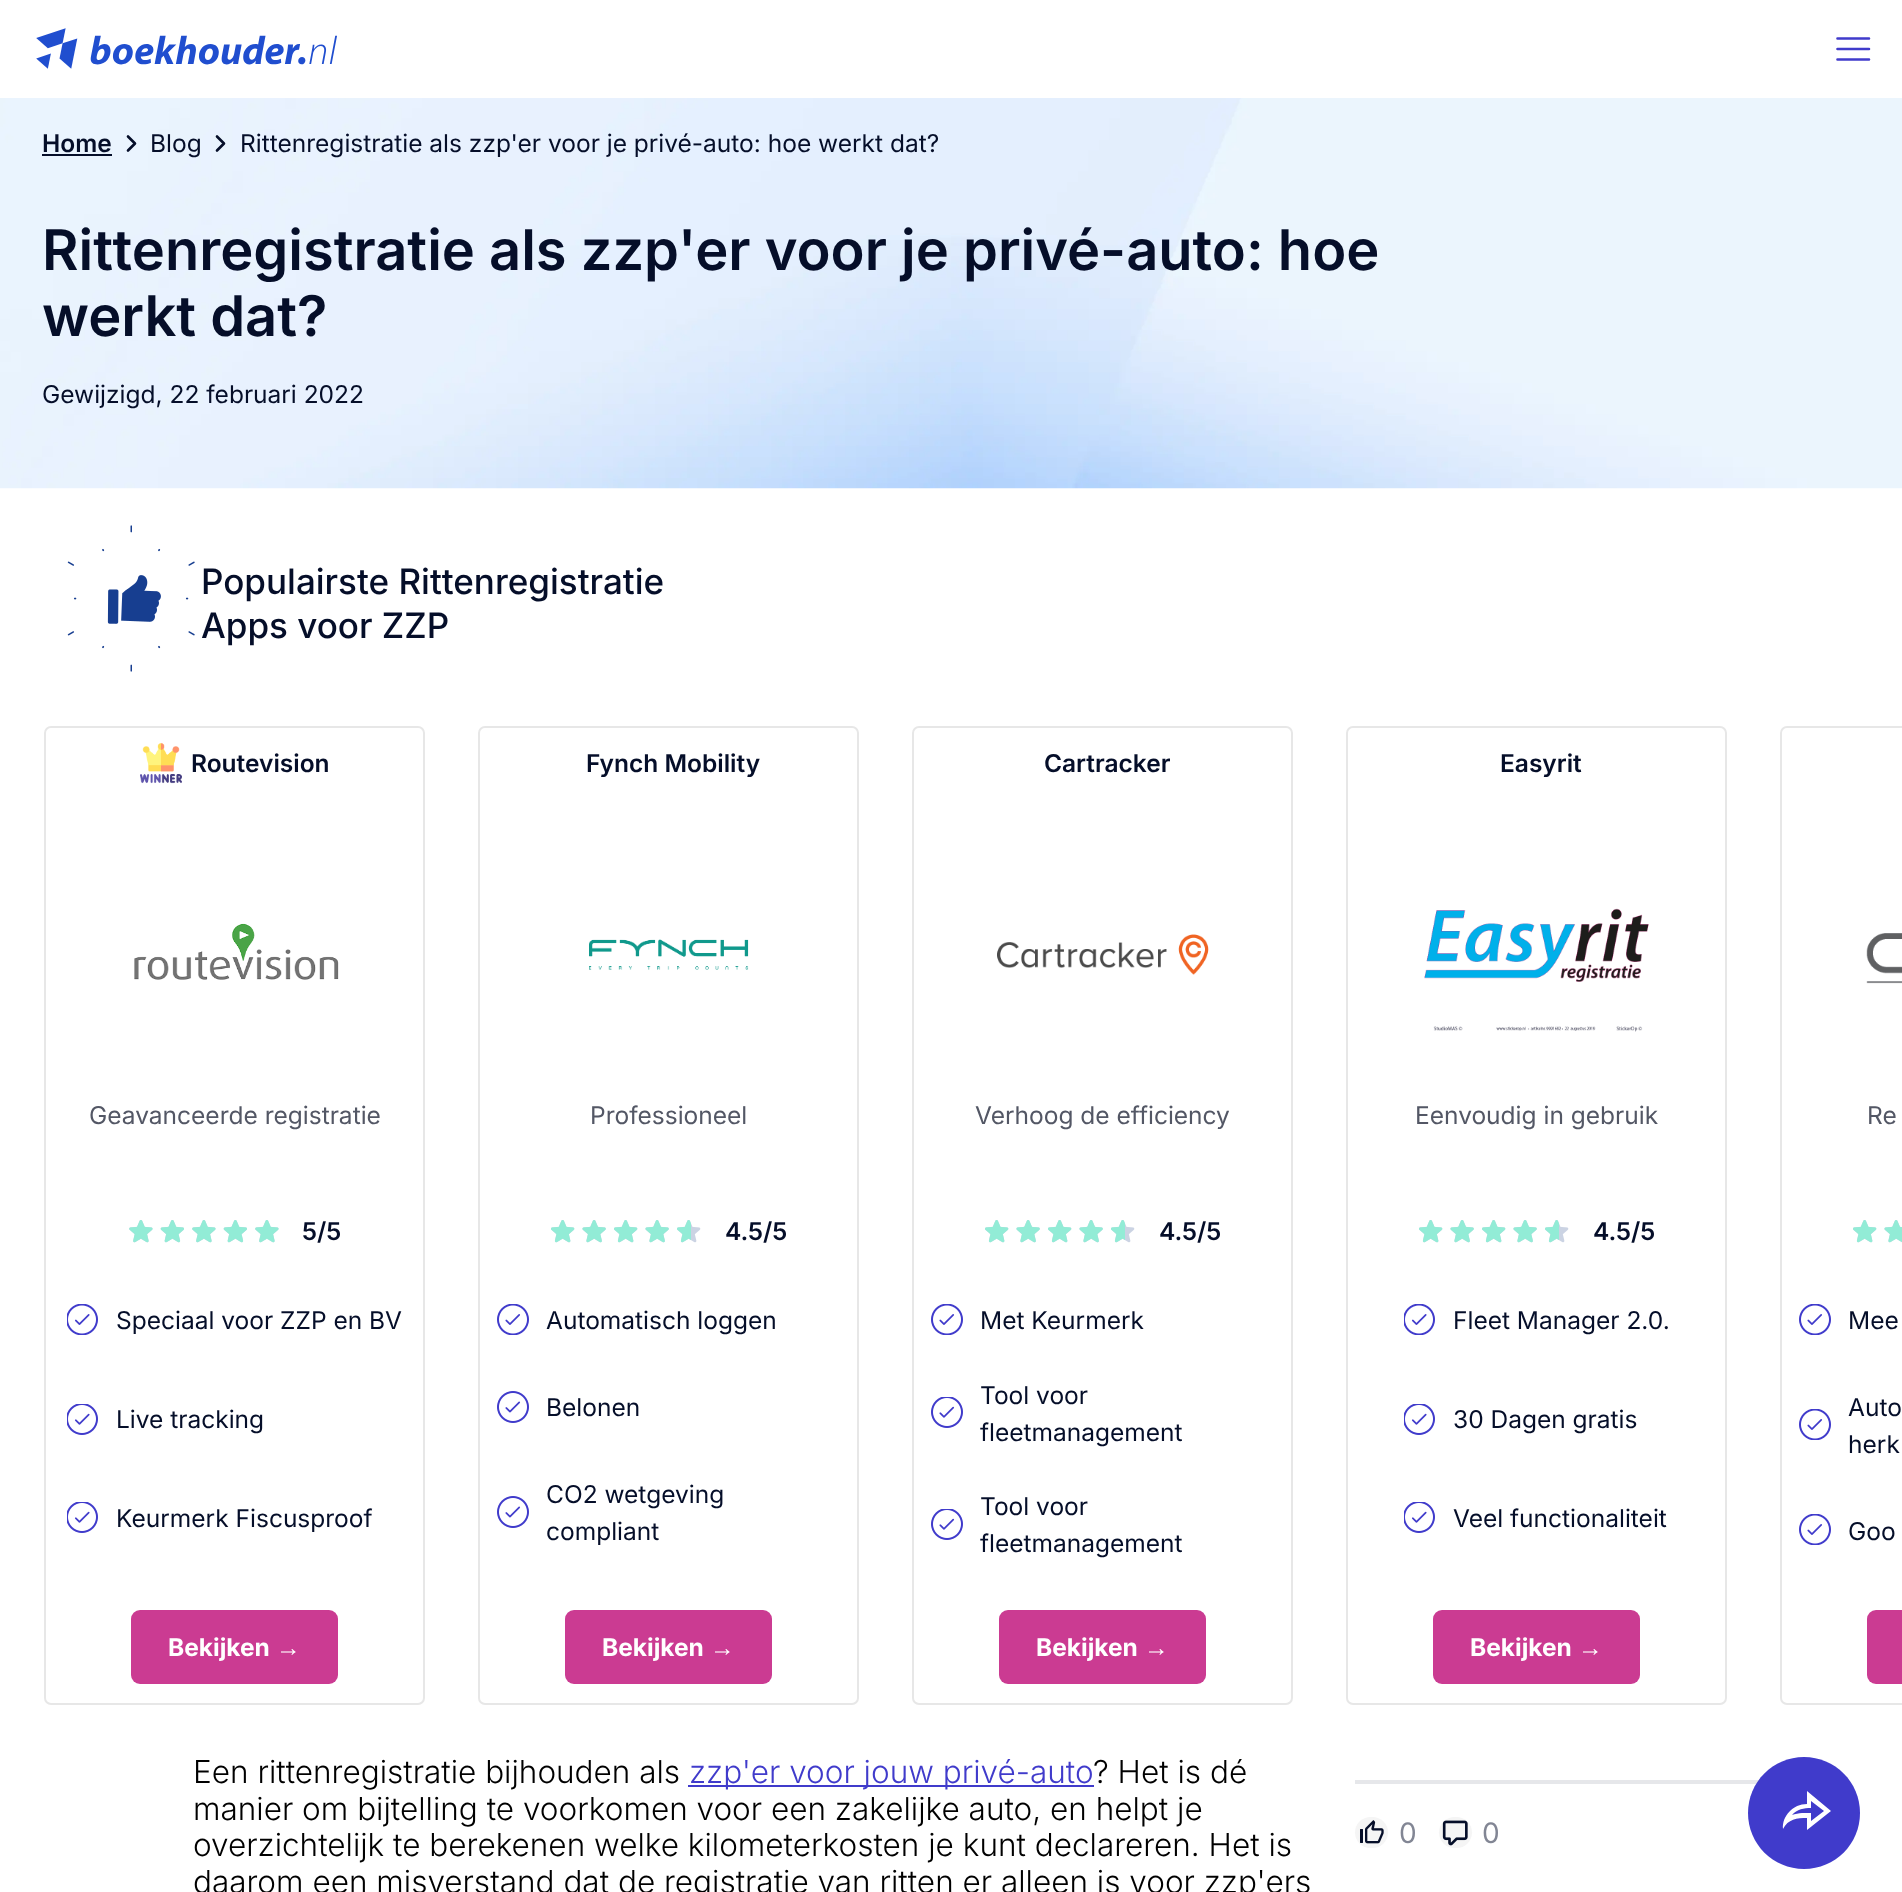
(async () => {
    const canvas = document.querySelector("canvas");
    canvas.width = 1902;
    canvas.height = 1892;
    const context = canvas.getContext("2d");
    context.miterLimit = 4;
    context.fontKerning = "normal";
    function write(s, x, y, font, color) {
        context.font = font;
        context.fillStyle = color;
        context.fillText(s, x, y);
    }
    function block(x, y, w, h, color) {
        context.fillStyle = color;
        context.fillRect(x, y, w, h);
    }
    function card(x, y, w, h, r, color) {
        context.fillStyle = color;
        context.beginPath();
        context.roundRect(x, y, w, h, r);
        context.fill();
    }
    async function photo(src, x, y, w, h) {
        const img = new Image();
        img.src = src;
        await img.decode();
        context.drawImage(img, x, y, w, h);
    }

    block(0, 0, 1902, 1892, "rgb(255, 255, 255)");
    await photo("media/1.png", 36, 28, 301, 41);
    context.beginPath();
    context.moveTo(1837.5, 49);
    context.lineTo(1869, 49);
    context.moveTo(1837.5, 38.5);
    context.lineTo(1869, 38.5);
    context.moveTo(1837.5, 59.5);
    context.lineTo(1869, 59.5);
    context.strokeStyle = "rgb(64, 59, 203)";
    context.lineWidth = 2.6;
    context.lineCap = "round";
    context.lineJoin = "round";
    context.stroke();
    await photo("media/2.png", 0, 98, 1902, 391);
    write("Home", 42, 152, "600 24.5px Inter", "rgb(5, 14, 41)");
    block(42, 154, 70, 2, "rgb(5, 14, 41)");
    context.beginPath();
    context.moveTo(128, 150.5);
    context.lineTo(135, 143.5);
    context.lineTo(128, 136.5);
    context.strokeStyle = "rgb(5, 14, 41)";
    context.stroke();
    write("Blog", 150, 152, "24.5px Inter", "rgb(5, 14, 41)");
    context.beginPath();
    context.moveTo(217, 150.5);
    context.lineTo(224, 143.5);
    context.lineTo(217, 136.5);
    context.stroke();
    write("Rittenregistratie als zzp'er voor je privé-auto: hoe werkt dat?", 240, 152, "24.5px Inter", "rgb(5, 14, 41)");
    write("Rittenregistratie als zzp'er voor je privé-auto: hoe", 42, 270, "600 56px Inter", "rgb(5, 14, 41)");
    write("werkt dat?", 42, 336, "600 56px Inter", "rgb(5, 14, 41)");
    write("Gewijzigd, 22 februari 2022", 42, 403, "24.5px Inter", "rgb(5, 14, 41)");
    await photo("media/3.png", 67, 525, 128, 147);
    write("Populairste Rittenregistratie", 201, 594, "500 35px Inter", "rgb(5, 14, 41)");
    write("Apps voor ZZP", 201, 638, "500 35px Inter", "rgb(5, 14, 41)");
    context.beginPath();
    context.roundRect(45, 727, 379, 977, 6);
    context.strokeStyle = "rgb(231, 231, 231)";
    context.lineWidth = 2;
    context.lineJoin = "miter";
    context.stroke();
    await photo("media/4.png", 140, 742, 42, 42);
    write("Routevision", 191, 772, "600 24.5px Inter", "rgb(5, 14, 41)");
    await photo("media/5.png", 134, 923, 205, 57);
    write("Geavanceerde registratie", 89, 1124, "24.5px Inter", "rgb(83, 87, 101)");
    await photo("media/6.png", 129, 1220, 24, 23);
    await photo("media/7.png", 160, 1220, 24, 23);
    await photo("media/6.png", 192, 1220, 24, 23);
    await photo("media/7.png", 223, 1220, 24, 23);
    await photo("media/6.png", 255, 1220, 24, 23);
    await photo("media/8.png", 129, 1220, 24, 23);
    await photo("media/9.png", 160, 1220, 24, 23);
    await photo("media/8.png", 192, 1220, 24, 23);
    await photo("media/9.png", 223, 1220, 24, 23);
    await photo("media/8.png", 255, 1220, 24, 23);
    write("5/5", 302, 1240, "600 24.5px Inter", "rgb(5, 14, 41)");
    await photo("media/10.png", 67, 1304, 31, 31);
    write("Speciaal voor ZZP en BV", 116, 1329, "24.5px Inter", "rgb(5, 14, 41)");
    await photo("media/11.png", 67, 1404, 31, 31);
    write("Live tracking", 116, 1428, "24.5px Inter", "rgb(5, 14, 41)");
    await photo("media/11.png", 67, 1502, 31, 31);
    write("Keurmerk Fiscusproof", 116, 1527, "24.5px Inter", "rgb(5, 14, 41)");
    card(131, 1610, 207, 74, 9, "rgb(203, 59, 146)");
    write("Bekijken", 168, 1656, "bold 24.5px Inter", "rgb(255, 255, 255)");
    write("→", 276, 1656, "bold 24.5px Liberation Serif", "rgb(255, 255, 255)");
    context.beginPath();
    context.roundRect(479, 727, 379, 977, 6);
    context.stroke();
    write("Fynch Mobility", 586, 772, "600 24.5px Inter", "rgb(5, 14, 41)");
    await photo("media/12.png", 589, 939, 160, 31);
    write("Professioneel", 590, 1124, "24.5px Inter", "rgb(83, 87, 101)");
    await photo("media/13.png", 551, 1220, 24, 23);
    await photo("media/14.png", 582, 1220, 24, 23);
    await photo("media/13.png", 614, 1220, 24, 23);
    await photo("media/14.png", 645, 1220, 24, 23);
    await photo("media/13.png", 677, 1220, 24, 23);
    await photo("media/15.png", 551, 1220, 24, 23);
    await photo("media/16.png", 582, 1220, 24, 23);
    await photo("media/15.png", 614, 1220, 24, 23);
    await photo("media/16.png", 645, 1220, 24, 23);
    await photo("media/17.png", 677, 1220, 14, 23);
    write("4.5/5", 725, 1240, "600 24.5px Inter", "rgb(5, 14, 41)");
    await photo("media/18.png", 497, 1304, 32, 31);
    write("Automatisch loggen", 546, 1329, "24.5px Inter", "rgb(5, 14, 41)");
    await photo("media/19.png", 497, 1391, 32, 32);
    write("Belonen", 546, 1416, "24.5px Inter", "rgb(5, 14, 41)");
    await photo("media/19.png", 497, 1496, 32, 32);
    write("CO2 wetgeving", 546, 1503, "24.5px Inter", "rgb(5, 14, 41)");
    write("compliant", 546, 1540, "24.5px Inter", "rgb(5, 14, 41)");
    card(565, 1610, 207, 74, 9, "rgb(203, 59, 146)");
    write("Bekijken", 602, 1656, "bold 24.5px Inter", "rgb(255, 255, 255)");
    write("→", 710, 1656, "bold 24.5px Liberation Serif", "rgb(255, 255, 255)");
    context.beginPath();
    context.roundRect(913, 727, 379, 977, 6);
    context.stroke();
    write("Cartracker", 1044, 772, "600 24.5px Inter", "rgb(5, 14, 41)");
    await photo("media/20.png", 997, 934, 212, 41);
    write("Verhoog de efficiency", 975, 1124, "24.5px Inter", "rgb(83, 87, 101)");
    await photo("media/13.png", 985, 1220, 24, 23);
    await photo("media/14.png", 1016, 1220, 24, 23);
    await photo("media/13.png", 1048, 1220, 24, 23);
    await photo("media/14.png", 1079, 1220, 24, 23);
    await photo("media/13.png", 1111, 1220, 24, 23);
    await photo("media/15.png", 985, 1220, 24, 23);
    await photo("media/16.png", 1016, 1220, 24, 23);
    await photo("media/15.png", 1048, 1220, 24, 23);
    await photo("media/16.png", 1079, 1220, 24, 23);
    await photo("media/17.png", 1111, 1220, 14, 23);
    write("4.5/5", 1159, 1240, "600 24.5px Inter", "rgb(5, 14, 41)");
    await photo("media/18.png", 931, 1304, 32, 31);
    write("Met Keurmerk", 980, 1329, "24.5px Inter", "rgb(5, 14, 41)");
    await photo("media/21.png", 931, 1397, 32, 31);
    write("Tool voor", 980, 1404, "24.5px Inter", "rgb(5, 14, 41)");
    write("fleetmanagement", 980, 1441, "24.5px Inter", "rgb(5, 14, 41)");
    await photo("media/21.png", 931, 1509, 32, 31);
    write("Tool voor", 980, 1515, "24.5px Inter", "rgb(5, 14, 41)");
    write("fleetmanagement", 980, 1552, "24.5px Inter", "rgb(5, 14, 41)");
    card(999, 1610, 207, 74, 9, "rgb(203, 59, 146)");
    write("Bekijken", 1036, 1656, "bold 24.5px Inter", "rgb(255, 255, 255)");
    write("→", 1144, 1656, "bold 24.5px Liberation Serif", "rgb(255, 255, 255)");
    context.beginPath();
    context.roundRect(1347, 727, 379, 977, 6);
    context.stroke();
    write("Easyrit", 1500, 772, "600 24.5px Inter", "rgb(5, 14, 41)");
    await photo("media/22.png", 1424, 908, 225, 124);
    write("Eenvoudig in gebruik", 1415, 1124, "24.5px Inter", "rgb(83, 87, 101)");
    await photo("media/13.png", 1419, 1220, 24, 23);
    await photo("media/14.png", 1450, 1220, 24, 23);
    await photo("media/13.png", 1482, 1220, 24, 23);
    await photo("media/14.png", 1513, 1220, 24, 23);
    await photo("media/13.png", 1545, 1220, 24, 23);
    await photo("media/15.png", 1419, 1220, 24, 23);
    await photo("media/16.png", 1450, 1220, 24, 23);
    await photo("media/15.png", 1482, 1220, 24, 23);
    await photo("media/16.png", 1513, 1220, 24, 23);
    await photo("media/17.png", 1545, 1220, 14, 23);
    write("4.5/5", 1593, 1240, "600 24.5px Inter", "rgb(5, 14, 41)");
    await photo("media/10.png", 1404, 1304, 31, 31);
    write("Fleet Manager 2.0.", 1453, 1329, "24.5px Inter", "rgb(5, 14, 41)");
    await photo("media/11.png", 1404, 1404, 31, 31);
    write("30 Dagen gratis", 1453, 1428, "24.5px Inter", "rgb(5, 14, 41)");
    await photo("media/11.png", 1404, 1502, 31, 31);
    write("Veel functionaliteit", 1453, 1527, "24.5px Inter", "rgb(5, 14, 41)");
    card(1433, 1610, 207, 74, 9, "rgb(203, 59, 146)");
    write("Bekijken", 1470, 1656, "bold 24.5px Inter", "rgb(255, 255, 255)");
    write("→", 1578, 1656, "bold 24.5px Liberation Serif", "rgb(255, 255, 255)");
    context.beginPath();
    context.roundRect(1781, 727, 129, 977, 6);
    context.stroke();
    await photo("media/23.png", 1866, 933, 36, 51);
    write("Re", 1867, 1124, "24.5px Inter", "rgb(83, 87, 101)");
    await photo("media/13.png", 1853, 1220, 24, 23);
    await photo("media/24.png", 1884, 1220, 18, 23);
    await photo("media/15.png", 1853, 1220, 24, 23);
    await photo("media/25.png", 1884, 1220, 18, 23);
    await photo("media/18.png", 1799, 1304, 32, 31);
    write("Mee", 1848, 1329, "24.5px Inter", "rgb(5, 14, 41)");
    await photo("media/18.png", 1799, 1409, 32, 31);
    write("Auto", 1848, 1416, "24.5px Inter", "rgb(5, 14, 41)");
    write("herk", 1848, 1453, "24.5px Inter", "rgb(5, 14, 41)");
    await photo("media/18.png", 1799, 1514, 32, 31);
    write("Goo", 1848, 1540, "24.5px Inter", "rgb(5, 14, 41)");
    context.fillStyle = "rgb(203, 59, 146)";
    context.beginPath();
    context.roundRect(1867, 1610, 35, 74, [9, 0, 0, 9]);
    context.fill();
    write("Een rittenregistratie bijhouden als", 193, 1783, "300 31.5px Inter", "rgb(0, 0, 0)");
    block(688, 1785, 406, 2, "rgb(64, 59, 203)");
    write("zzp'er voor jouw privé-auto", 689, 1783, "300 31.5px Inter", "rgb(64, 59, 203)");
    write("? Het is dé", 1093, 1783, "300 31.5px Inter", "rgb(0, 0, 0)");
    write("manier om bijtelling te voorkomen voor een zakelijke auto, en helpt je", 193, 1820, "300 31.5px Inter", "rgb(0, 0, 0)");
    write("overzichtelijk te berekenen welke kilometerkosten je kunt declareren. Het is", 193, 1856, "300 31.5px Inter", "rgb(0, 0, 0)");
    write("daarom een misverstand dat de registratie van ritten er alleen is voor zzp'ers", 193, 1893, "300 31.5px Inter", "rgb(0, 0, 0)");
    block(1355, 1780, 404, 4, "rgb(230, 231, 234)");
    card(1355, 1817, 33, 31, 15.5, "rgb(245, 245, 245)");
    await photo("media/26.png", 1360, 1820, 24, 24);
    write("0", 1399, 1843, "28px Inter", "rgb(130, 134, 148)");
    card(1439, 1817, 33, 31, 15.5, "rgb(245, 245, 245)");
    await photo("media/27.png", 1442, 1820, 26, 26);
    write("0", 1482, 1843, "28px Inter", "rgb(130, 134, 148)");
    context.fillStyle = "rgb(64, 59, 203)";
    context.beginPath();
    context.moveTo(1748, 1813);
    context.bezierCurveTo(1748, 1782, 1773, 1757, 1804, 1757);
    context.bezierCurveTo(1835, 1757, 1860, 1782, 1860, 1813);
    context.bezierCurveTo(1860, 1844, 1835, 1869, 1804, 1869);
    context.bezierCurveTo(1773, 1869, 1748, 1844, 1748, 1813);
    context.closePath();
    context.fill();
    context.fillStyle = "rgb(255, 255, 255)";
    context.beginPath();
    context.moveTo(1807, 1818);
    context.bezierCurveTo(1797, 1818, 1788, 1819, 1783, 1829);
    context.bezierCurveTo(1782, 1816, 1793, 1804, 1807, 1804);
    context.lineTo(1807, 1791);
    context.lineTo(1831, 1811);
    context.lineTo(1807, 1830);
    context.closePath();
    context.moveTo(1802, 1813);
    context.lineTo(1811, 1813);
    context.lineTo(1811, 1821);
    context.lineTo(1824, 1811);
    context.lineTo(1811, 1801);
    context.lineTo(1811, 1808);
    context.bezierCurveTo(1804, 1808, 1797, 1809, 1792, 1815);
    context.bezierCurveTo(1795, 1814, 1799, 1813, 1802, 1813);
    context.closePath();
    context.fill();
})();
